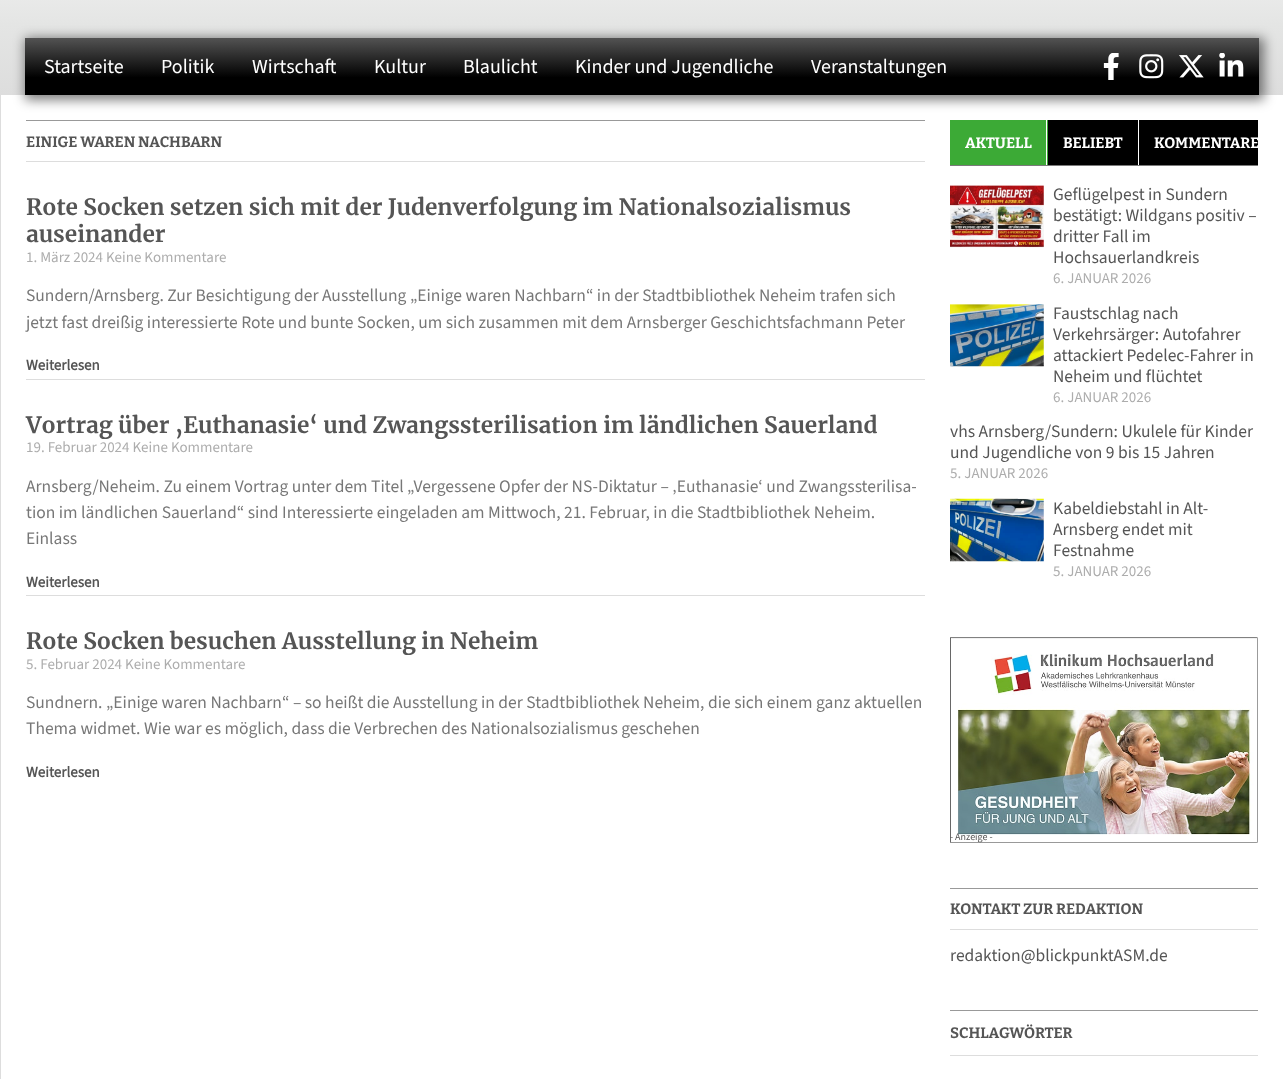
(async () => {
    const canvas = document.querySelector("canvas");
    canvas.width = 1283;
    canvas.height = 1079;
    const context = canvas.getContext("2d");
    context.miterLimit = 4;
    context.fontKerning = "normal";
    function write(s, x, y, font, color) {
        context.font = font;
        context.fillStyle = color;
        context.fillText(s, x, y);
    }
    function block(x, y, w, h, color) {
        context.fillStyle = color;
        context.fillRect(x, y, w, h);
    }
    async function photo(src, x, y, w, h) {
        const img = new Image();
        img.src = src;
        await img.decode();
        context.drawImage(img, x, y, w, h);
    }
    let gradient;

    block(0, 0, 1283, 1079, "rgb(255, 255, 255)");
    gradient = context.createLinearGradient(642, -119, 642, 25);
    gradient.addColorStop(0, "rgb(255, 255, 255)");
    gradient.addColorStop(1, "rgb(228, 229, 228)");
    context.fillStyle = gradient;
    context.fillRect(0, 0, 1283, 25);
    gradient = context.createLinearGradient(642, 25, 642, 95);
    gradient.addColorStop(0, "rgb(228, 229, 228)");
    gradient.addColorStop(1, "rgb(221, 221, 221)");
    context.fillStyle = gradient;
    context.fillRect(0, 25, 1283, 70);
    context.fillStyle = "rgba(0, 0, 0, 0.5)";
    context.filter = "blur(6px)";
    context.beginPath();
    context.rect(25, 38, 1239, 62);
    context.fill();
    context.filter = "none";
    gradient = context.createLinearGradient(642, 37, 642, 95);
    gradient.addColorStop(0, "rgb(85, 85, 85)");
    gradient.addColorStop(0.7, "rgb(0, 0, 0)");
    context.fillStyle = gradient;
    context.fillRect(25, 38, 1234, 57);
    write("Startseite", 44, 73, "200 20px 'Source Sans 3'", "rgb(255, 255, 255)");
    write("Politik", 161, 73, "200 20px 'Source Sans 3'", "rgb(255, 255, 255)");
    write("Wirtschaft", 252, 73, "200 20px 'Source Sans 3'", "rgb(255, 255, 255)");
    write("Kultur", 374, 73, "200 20px 'Source Sans 3'", "rgb(255, 255, 255)");
    write("Blaulicht", 463, 73, "200 20px 'Source Sans 3'", "rgb(255, 255, 255)");
    write("Kinder und Jugendliche", 575, 73, "200 20px 'Source Sans 3'", "rgb(255, 255, 255)");
    write("Veranstaltungen", 811, 73, "200 20px 'Source Sans 3'", "rgb(255, 255, 255)");
    await photo("media/1.png", 1103, 53, 16, 27);
    await photo("media/2.png", 1139, 54, 25, 25);
    await photo("media/3.png", 1179, 55, 25, 23);
    await photo("media/4.png", 1219, 53, 25, 24);
    block(0, 95, 1, 984, "rgb(221, 221, 221)");
    block(26, 120, 899, 1, "rgb(153, 153, 153)");
    write("EINIGE WAREN NACHBARN", 26, 147, "100 15px Bitter", "rgb(85, 85, 85)");
    block(26, 161, 899, 1, "rgb(221, 221, 221)");
    write("Rote Socken setzen sich mit der Judenverfolgung im Nationalsozialismus", 26, 215, "bold 22.5px Merriweather", "rgb(85, 85, 85)");
    write("auseinander", 26, 242, "bold 22.5px Merriweather", "rgb(85, 85, 85)");
    write("1. März 2024 Keine Kommentare", 26, 262, "200 15px 'Source Sans 3'", "rgb(173, 173, 173)");
    write("Sundern/Arnsberg. Zur Besichtigung der Ausstellung „Einige waren Nachbarn“ in der Stadtbibliothek Neheim trafen sich", 26, 301, "200 17.5px 'Source Sans 3'", "rgb(119, 119, 119)");
    write("jetzt fast dreißig interessierte Rote und bunte Socken, um sich zusammen mit dem Arnsberger Geschichtsfachmann Peter", 26, 328, "200 17.5px 'Source Sans 3'", "rgb(119, 119, 119)");
    write("Weiterlesen", 26, 370, "bold 15px 'Source Sans 3'", "rgb(85, 85, 85)");
    block(26, 379, 899, 1, "rgb(221, 221, 221)");
    write("Vortrag über ‚Euthanasie‘ und Zwangssterilisation im ländlichen Sauerland", 26, 433, "bold 22.5px Merriweather", "rgb(85, 85, 85)");
    write("19. Februar 2024 Keine Kommentare", 26, 452, "200 15px 'Source Sans 3'", "rgb(173, 173, 173)");
    write("Arnsberg/Neheim. Zu einem Vortrag unter dem Titel „Vergessene Opfer der NS-Diktatur – ‚Euthanasie‘ und Zwangssterilisa-", 26, 492, "200 17.5px 'Source Sans 3'", "rgb(119, 119, 119)");
    write("tion im ländlichen Sauerland“ sind Interessierte eingeladen am Mittwoch, 21. Februar, in die Stadtbibliothek Neheim.", 26, 518, "200 17.5px 'Source Sans 3'", "rgb(119, 119, 119)");
    write("Einlass", 26, 544, "200 17.5px 'Source Sans 3'", "rgb(119, 119, 119)");
    write("Weiterlesen", 26, 587, "bold 15px 'Source Sans 3'", "rgb(85, 85, 85)");
    block(26, 595, 899, 1, "rgb(221, 221, 221)");
    write("Rote Socken besuchen Ausstellung in Neheim", 26, 649, "bold 22.5px Merriweather", "rgb(85, 85, 85)");
    write("5. Februar 2024 Keine Kommentare", 26, 669, "200 15px 'Source Sans 3'", "rgb(173, 173, 173)");
    write("Sundnern. „Einige waren Nachbarn“ – so heißt die Ausstellung in der Stadtbibliothek Neheim, die sich einem ganz aktuellen", 26, 708, "200 17.5px 'Source Sans 3'", "rgb(119, 119, 119)");
    write("Thema widmet. Wie war es möglich, dass die Verbrechen des Nationalsozialismus geschehen", 26, 734, "200 17.5px 'Source Sans 3'", "rgb(119, 119, 119)");
    write("Weiterlesen", 26, 777, "bold 15px 'Source Sans 3'", "rgb(85, 85, 85)");
    block(950, 165, 308, 1, "rgb(122, 122, 122)");
    block(950, 120, 98, 45, "rgb(60, 170, 54)");
    block(1046, 120, 1, 45, "rgb(255, 255, 255)");
    write("AKTUELL", 965, 148, "100 15px Bitter", "rgb(255, 255, 255)");
    block(1048, 120, 90, 45, "rgb(0, 0, 0)");
    write("BELIEBT", 1063, 148, "100 15px Bitter", "rgb(255, 255, 255)");
    block(1139, 120, 119, 45, "rgb(0, 0, 0)");
    context.save();
    context.beginPath();
    context.rect(950, 120, 308, 45);
    context.clip();
    write("KOMMENTARE", 1154, 148, "100 15px Bitter", "rgb(255, 255, 255)");
    context.restore();
    await photo("media/5.png", 950, 185, 94, 63);
    write("Geflügelpest in Sundern", 1053, 200, "200 17.5px 'Source Sans 3'", "rgb(85, 85, 85)");
    write("bestätigt: Wildgans positiv –", 1053, 221, "200 17.5px 'Source Sans 3'", "rgb(85, 85, 85)");
    write("dritter Fall im", 1053, 242, "200 17.5px 'Source Sans 3'", "rgb(85, 85, 85)");
    write("Hochsauerlandkreis", 1053, 263, "200 17.5px 'Source Sans 3'", "rgb(85, 85, 85)");
    write("6. JANUAR 2026", 1053, 283, "200 15px 'Source Sans 3'", "rgb(173, 173, 173)");
    await photo("media/6.png", 950, 304, 94, 63);
    write("Faustschlag nach", 1053, 319, "200 17.5px 'Source Sans 3'", "rgb(85, 85, 85)");
    write("Verkehrsärger: Autofahrer", 1053, 340, "200 17.5px 'Source Sans 3'", "rgb(85, 85, 85)");
    write("attackiert Pedelec-Fahrer in", 1053, 361, "200 17.5px 'Source Sans 3'", "rgb(85, 85, 85)");
    write("Neheim und flüchtet", 1053, 382, "200 17.5px 'Source Sans 3'", "rgb(85, 85, 85)");
    write("6. JANUAR 2026", 1053, 402, "200 15px 'Source Sans 3'", "rgb(173, 173, 173)");
    write("vhs Arnsberg/Sundern: Ukulele für Kinder", 950, 437, "200 17.5px 'Source Sans 3'", "rgb(85, 85, 85)");
    write("und Jugendliche von 9 bis 15 Jahren", 950, 458, "200 17.5px 'Source Sans 3'", "rgb(85, 85, 85)");
    write("5. JANUAR 2026", 950, 478, "200 15px 'Source Sans 3'", "rgb(173, 173, 173)");
    await photo("media/7.png", 950, 498, 94, 64);
    write("Kabeldiebstahl in Alt-", 1053, 514, "200 17.5px 'Source Sans 3'", "rgb(85, 85, 85)");
    write("Arnsberg endet mit", 1053, 535, "200 17.5px 'Source Sans 3'", "rgb(85, 85, 85)");
    write("Festnahme", 1053, 556, "200 17.5px 'Source Sans 3'", "rgb(85, 85, 85)");
    write("5. JANUAR 2026", 1053, 576, "200 15px 'Source Sans 3'", "rgb(173, 173, 173)");
    await photo("media/8.png", 950, 637, 308, 206);
    write("- Anzeige -", 950, 840, "200 10px 'Source Sans 3'", "rgb(85, 85, 85)");
    block(950, 888, 308, 1, "rgb(153, 153, 153)");
    block(950, 929, 308, 1, "rgb(221, 221, 221)");
    write("KONTAKT ZUR REDAKTION", 950, 914, "100 15px Bitter", "rgb(85, 85, 85)");
    write("redaktion@blickpunktASM.de", 950, 961, "200 17.5px 'Source Sans 3'", "rgb(85, 85, 85)");
    block(950, 1010, 308, 1, "rgb(153, 153, 153)");
    block(950, 1055, 308, 1, "rgb(221, 221, 221)");
    write("SCHLAGWÖRTER", 950, 1038, "100 15px Bitter", "rgb(85, 85, 85)");
})();
